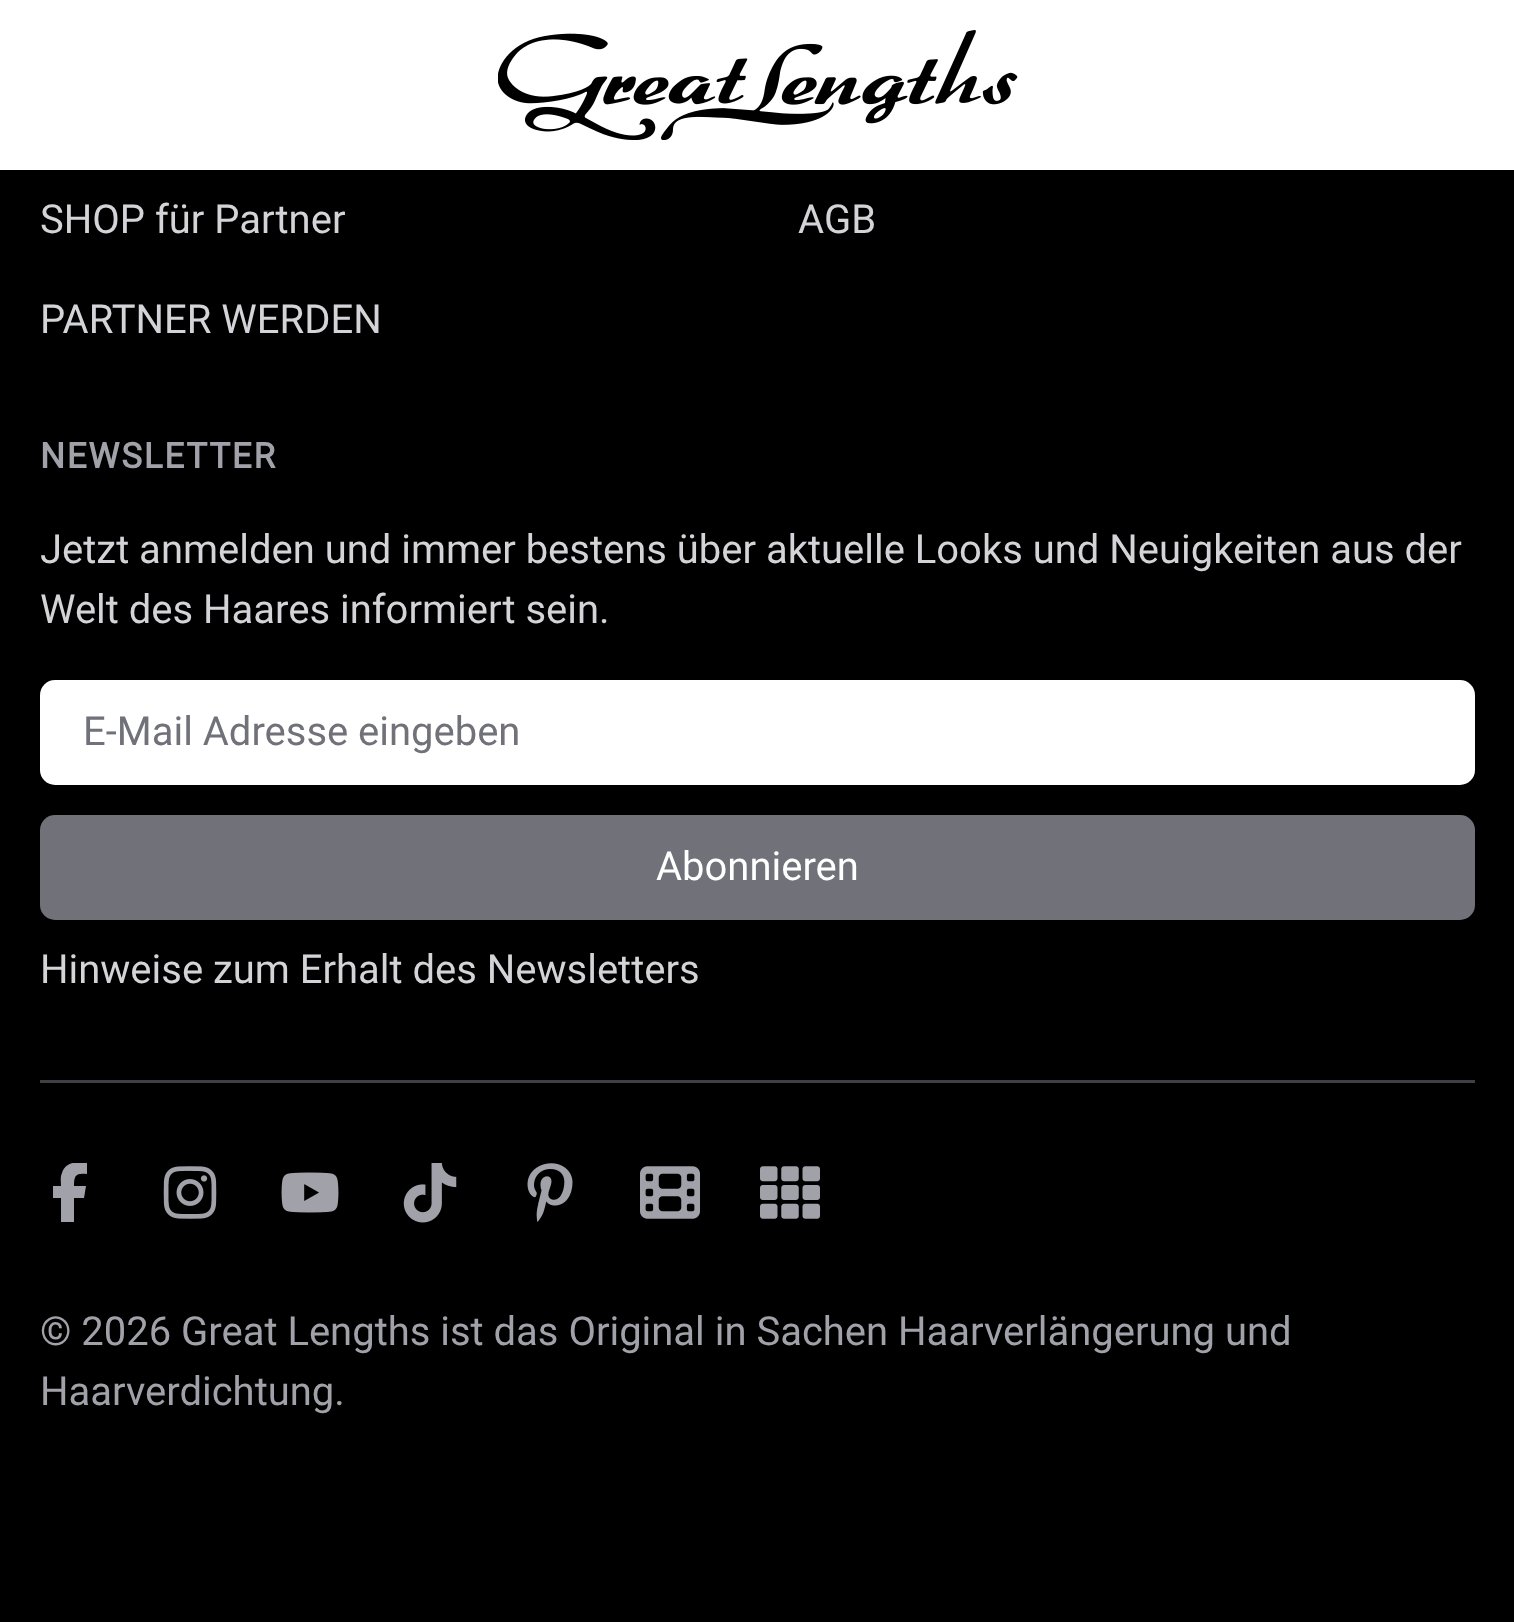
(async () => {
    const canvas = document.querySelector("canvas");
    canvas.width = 1514;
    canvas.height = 1622;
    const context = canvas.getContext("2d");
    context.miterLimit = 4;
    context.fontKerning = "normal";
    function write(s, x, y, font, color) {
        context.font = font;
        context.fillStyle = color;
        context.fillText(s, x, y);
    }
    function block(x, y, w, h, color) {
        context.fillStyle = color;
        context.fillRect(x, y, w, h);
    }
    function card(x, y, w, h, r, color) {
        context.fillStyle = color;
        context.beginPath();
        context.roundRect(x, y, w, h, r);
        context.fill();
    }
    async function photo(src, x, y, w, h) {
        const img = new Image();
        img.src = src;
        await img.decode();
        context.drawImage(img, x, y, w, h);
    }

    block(0, 0, 1514, 1622, "rgb(0, 0, 0)");
    block(0, 0, 1514, 170, "rgb(255, 255, 255)");
    await photo("media/1.png", 498, 30, 520, 110);
    write("SHOP für Partner", 40, 233, "40px Roboto", "rgb(212, 212, 216)");
    write("PARTNER WERDEN", 40, 333, "40px Roboto", "rgb(212, 212, 216)");
    write("AGB", 798, 233, "40px Roboto", "rgb(212, 212, 216)");
    context.letterSpacing = "1.75px";
    write("NEWSLETTER", 40, 468, "bold 35px Roboto", "rgb(161, 161, 170)");
    context.letterSpacing = "0px";
    write("Jetzt anmelden und immer bestens über aktuelle Looks und Neuigkeiten aus der", 40, 563, "40px Roboto", "rgb(212, 212, 216)");
    write("Welt des Haares informiert sein.", 40, 623, "40px Roboto", "rgb(212, 212, 216)");
    card(40, 680, 1435, 105, 15, "rgb(255, 255, 255)");
    write("E-Mail Adresse eingeben", 83, 745, "40px Roboto", "rgb(113, 113, 122)");
    card(40, 815, 1435, 105, 15, "rgb(113, 113, 122)");
    write("Abonnieren", 656, 880, "40px Roboto", "rgb(255, 255, 255)");
    write("Hinweise zum Erhalt des Newsletters", 40, 983, "40px Roboto", "rgb(212, 212, 216)");
    block(40, 1080, 1435, 3, "rgb(63, 63, 70)");
    context.save();
    context.beginPath();
    context.rect(40, 1163, 60, 60);
    context.clip();
    context.fillStyle = "rgb(161, 161, 170)";
    context.beginPath();
    context.moveTo(61, 1198);
    context.lineTo(61, 1222);
    context.lineTo(74, 1222);
    context.lineTo(74, 1198);
    context.lineTo(84, 1198);
    context.lineTo(86, 1186);
    context.lineTo(74, 1186);
    context.bezierCurveTo(74, 1175, 76, 1173, 87, 1174);
    context.lineTo(87, 1163);
    context.bezierCurveTo(78, 1161, 65, 1162, 62, 1173);
    context.bezierCurveTo(60, 1177, 61, 1182, 61, 1186);
    context.lineTo(53, 1186);
    context.lineTo(53, 1198);
    context.closePath();
    context.fill();
    context.restore();
    await photo("media/2.png", 163, 1166, 54, 53);
    await photo("media/3.png", 281, 1172, 58, 41);
    await photo("media/4.png", 403, 1163, 54, 60);
    await photo("media/5.png", 527, 1163, 46, 59);
    await photo("media/6.png", 640, 1166, 60, 53);
    await photo("media/7.png", 760, 1166, 60, 53);
    write("© 2026 Great Lengths ist das Original in Sachen Haarverlängerung und", 40, 1345, "40px Roboto", "rgb(161, 161, 170)");
    write("Haarverdichtung.", 40, 1405, "40px Roboto", "rgb(161, 161, 170)");
})();
